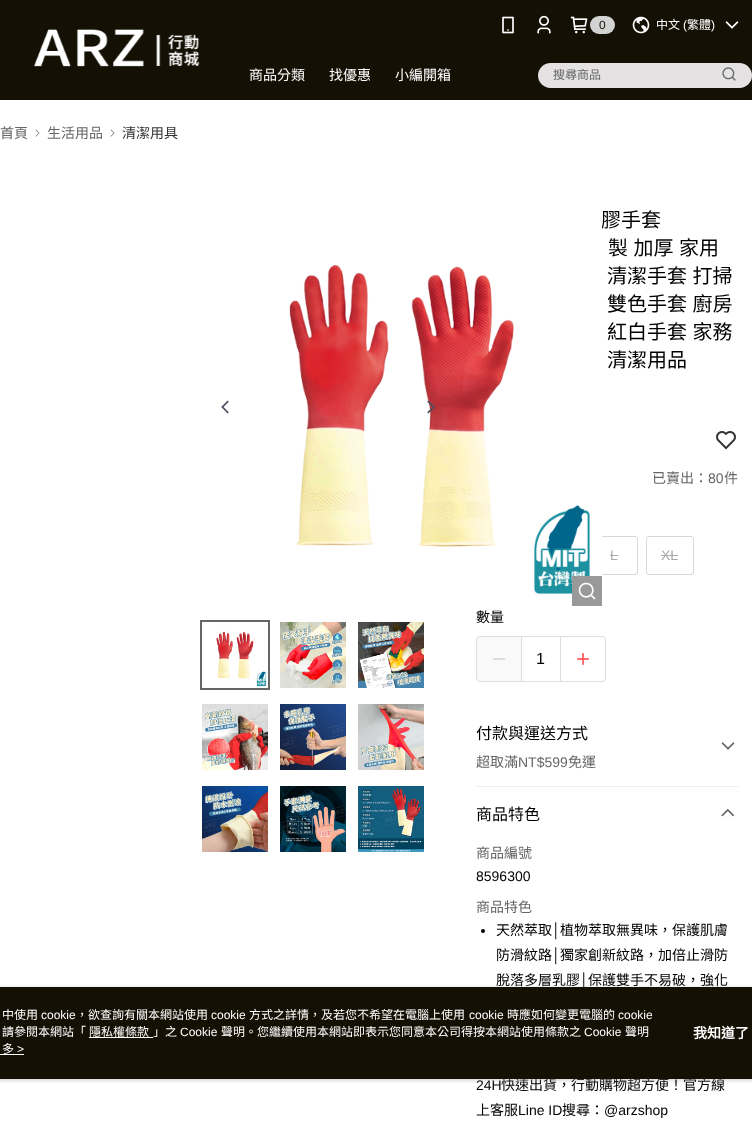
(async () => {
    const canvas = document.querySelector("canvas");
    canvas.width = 752;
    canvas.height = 1125;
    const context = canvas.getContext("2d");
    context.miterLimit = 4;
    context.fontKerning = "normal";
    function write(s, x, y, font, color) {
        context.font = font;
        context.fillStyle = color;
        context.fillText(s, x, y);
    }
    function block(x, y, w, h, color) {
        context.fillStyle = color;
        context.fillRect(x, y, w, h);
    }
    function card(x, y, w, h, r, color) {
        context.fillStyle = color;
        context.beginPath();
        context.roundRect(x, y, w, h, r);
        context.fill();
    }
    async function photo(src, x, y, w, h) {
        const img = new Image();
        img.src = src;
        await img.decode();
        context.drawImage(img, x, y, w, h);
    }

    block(0, 0, 752, 1125, "rgb(255, 255, 255)");
    block(0, 0, 752, 100, "rgb(20, 16, 4)");
    await photo("media/1.png", 34, 29, 166, 38);
    await photo("media/2.png", 502, 16, 12, 18);
    await photo("media/3.png", 537, 15, 14, 19);
    await photo("media/4.png", 570, 16, 18, 18);
    card(590, 16, 25, 18, 9, "rgb(211, 211, 211)");
    write("0", 599, 29, "12px Liberation Sans", "rgb(20, 16, 4)");
    await photo("media/5.png", 632, 16, 18, 18);
    write("中文", 656, 29, "12px Noto Sans CJK TC", "rgb(255, 255, 255)");
    write("(", 683, 29, "12px Liberation Sans", "rgb(255, 255, 255)");
    write("繁體", 687, 29, "12px Noto Sans CJK TC", "rgb(255, 255, 255)");
    write(")", 711, 29, "12px Liberation Sans", "rgb(255, 255, 255)");
    await photo("media/6.png", 725, 21, 14, 8);
    write("商品分類", 249, 80, "14px Noto Sans CJK TC", "rgb(255, 255, 255)");
    write("找優惠", 329, 80, "14px Noto Sans CJK TC", "rgb(255, 255, 255)");
    write("小編開箱", 395, 80, "14px Noto Sans CJK TC", "rgb(255, 255, 255)");
    card(538, 63, 214, 25, 12.5, "rgb(228, 226, 226)");
    write("搜尋商品", 553, 79, "12px Noto Sans CJK TC", "rgb(102, 102, 102)");
    await photo("media/7.png", 722, 67, 14, 14);
    write("首頁", 0, 138, "14px Noto Sans CJK TC", "rgb(102, 102, 102)");
    await photo("media/8.png", 35, 129, 5, 8);
    write("生活用品", 47, 138, "14px Noto Sans CJK TC", "rgb(102, 102, 102)");
    await photo("media/8.png", 110, 129, 5, 8);
    write("清潔用具", 122, 138, "14px Noto Sans CJK TC", "rgb(51, 51, 51)");
    await photo("media/9.png", 221, 400, 8, 14);
    context.wordSpacing = "1px";
    write("膠手套", 601, 227, "20px Noto Sans CJK TC", "rgb(0, 0, 0)");
    context.beginPath();
    context.roundRect(590.5, 536.5, 47, 38, 2.5);
    context.strokeStyle = "rgb(216, 216, 216)";
    context.stroke();
    await photo("media/10.png", 289, 210, 313, 384);
    block(572, 576, 30, 30, "rgb(153, 153, 153)");
    await photo("media/11.png", 578, 582, 18, 18);
    await photo("media/12.png", 427, 400, 8, 14);
    await photo("media/13.png", 216, 631, 51, 56);
    context.strokeStyle = "rgb(102, 102, 102)";
    context.lineWidth = 2;
    context.strokeRect(201, 621, 68, 68);
    await photo("media/14.png", 280, 622, 66, 66);
    await photo("media/15.png", 358, 622, 66, 66);
    await photo("media/16.png", 202, 704, 66, 66);
    await photo("media/17.png", 280, 704, 66, 66);
    await photo("media/18.png", 358, 704, 66, 66);
    await photo("media/19.png", 202, 786, 66, 66);
    await photo("media/20.png", 280, 786, 66, 66);
    await photo("media/21.png", 358, 786, 66, 66);
    write("製 加厚 家用", 608, 255, "20px Noto Sans CJK TC", "rgb(0, 0, 0)");
    write("清潔手套 打掃", 607, 283, "20px Noto Sans CJK TC", "rgb(0, 0, 0)");
    write("雙色手套 廚房", 607, 311, "20px Noto Sans CJK TC", "rgb(0, 0, 0)");
    write("紅白手套 家務", 607, 339, "20px Noto Sans CJK TC", "rgb(0, 0, 0)");
    write("清潔用品", 607, 367, "20px Noto Sans CJK TC", "rgb(0, 0, 0)");
    await photo("media/22.png", 716, 431, 20, 19);
    context.wordSpacing = "0px";
    write("已賣出：", 652, 483, "14px Noto Sans CJK TC", "rgb(102, 102, 102)");
    write("80", 708, 483, "14px Liberation Sans", "rgb(102, 102, 102)");
    write("件", 724, 483, "14px Noto Sans CJK TC", "rgb(102, 102, 102)");
    write("L", 610, 560, "14px Liberation Sans", "rgb(170, 170, 170)");
    block(610, 555, 8, 1, "rgb(170, 170, 170)");
    context.beginPath();
    context.roundRect(646.5, 536.5, 47, 38, 2.5);
    context.strokeStyle = "rgb(216, 216, 216)";
    context.lineWidth = 1;
    context.stroke();
    write("XL", 661, 560, "14px Liberation Sans", "rgb(170, 170, 170)");
    block(661, 555, 17, 1, "rgb(170, 170, 170)");
    write("數量", 476, 622, "14px Noto Sans CJK TC", "rgb(0, 0, 0)");
    context.beginPath();
    context.roundRect(476.5, 636.5, 129, 45, 3.5);
    context.strokeStyle = "rgb(221, 221, 221)";
    context.stroke();
    block(477, 637, 44, 44, "rgba(241, 241, 241, 0.4)");
    block(493, 658, 12, 2, "rgb(221, 221, 221)");
    block(560, 637, 1, 44, "rgb(221, 221, 221)");
    block(521, 637, 1, 44, "rgb(221, 221, 221)");
    write("1", 536, 664, "16px Liberation Sans", "rgb(0, 0, 0)");
    await photo("media/23.png", 577, 653, 12, 12);
    block(476, 786, 262, 1, "rgb(236, 239, 241)");
    write("付款與運送方式", 476, 739, "16px Noto Sans CJK TC", "rgb(0, 0, 0)");
    write("超取滿", 476, 767, "14px Noto Sans CJK TC", "rgb(102, 102, 102)");
    write("NT$599", 518, 767, "14px Liberation Sans", "rgb(102, 102, 102)");
    write("免運", 568, 767, "14px Noto Sans CJK TC", "rgb(102, 102, 102)");
    await photo("media/24.png", 721, 742, 14, 8);
    write("商品特色", 476, 820, "16px Noto Sans CJK TC", "rgb(0, 0, 0)");
    await photo("media/25.png", 721, 808, 14, 9);
    write("商品編號", 476, 858, "14px Noto Sans CJK TC", "rgb(102, 102, 102)");
    write("8596300", 476, 881, "14px Liberation Sans", "rgb(0, 0, 0)");
    write("商品特色", 476, 912, "14px Noto Sans CJK TC", "rgb(102, 102, 102)");
    context.fillStyle = "rgb(0, 0, 0)";
    context.beginPath();
    context.arc(483, 931, 2, 0, Math.PI * 2);
    context.fill();
    write("天然萃取", 496, 935, "14px Noto Sans CJK TC", "rgb(0, 0, 0)");
    write("│", 552, 935, "14px Liberation Sans", "rgb(0, 0, 0)");
    write("植物萃取無異味，保護肌膚", 560, 935, "14px Noto Sans CJK TC", "rgb(0, 0, 0)");
    write("防滑紋路", 496, 960, "14px Noto Sans CJK TC", "rgb(0, 0, 0)");
    write("│", 552, 960, "14px Liberation Sans", "rgb(0, 0, 0)");
    write("獨家創新紋路，加倍止滑防", 560, 960, "14px Noto Sans CJK TC", "rgb(0, 0, 0)");
    write("脫落多層乳膠", 496, 985, "14px Noto Sans CJK TC", "rgb(0, 0, 0)");
    write("│", 580, 985, "14px Liberation Sans", "rgb(0, 0, 0)");
    write("保護雙手不易破，強化", 588, 985, "14px Noto Sans CJK TC", "rgb(0, 0, 0)");
    write("24H", 476, 1090, "14px Liberation Sans", "rgb(0, 0, 0)");
    write("快速出貨，行動購物超方便！官方線", 501, 1090, "14px Noto Sans CJK TC", "rgb(0, 0, 0)");
    write("上客服", 476, 1115, "14px Noto Sans CJK TC", "rgb(0, 0, 0)");
    write("Line ID", 518, 1115, "14px Liberation Sans", "rgb(0, 0, 0)");
    write("搜尋：", 562, 1115, "14px Noto Sans CJK TC", "rgb(0, 0, 0)");
    write("@arzshop", 604, 1115, "14px Liberation Sans", "rgb(0, 0, 0)");
    context.fillStyle = "rgba(151, 151, 151, 0.5)";
    context.filter = "blur(2px)";
    context.beginPath();
    context.roundRect(-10, 988, 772, 92, 4);
    context.fill();
    context.filter = "none";
    block(0, 987, 752, 92, "rgb(20, 16, 4)");
    write("中使用", 2, 1019, "12px Noto Sans CJK TC", "rgb(255, 255, 255)");
    write("cookie", 41, 1019, "12px Liberation Sans", "rgb(255, 255, 255)");
    write("，欲查詢有關本網站使用", 76, 1019, "12px Noto Sans CJK TC", "rgb(255, 255, 255)");
    write("cookie", 211, 1019, "12px Liberation Sans", "rgb(255, 255, 255)");
    write("方式之詳情，及若您不希望在電腦上使用", 249, 1019, "12px Noto Sans CJK TC", "rgb(255, 255, 255)");
    write("cookie", 469, 1019, "12px Liberation Sans", "rgb(255, 255, 255)");
    write("時應如何變更電腦的", 507, 1019, "12px Noto Sans CJK TC", "rgb(255, 255, 255)");
    write("cookie", 618, 1019, "12px Liberation Sans", "rgb(255, 255, 255)");
    write("請參閱本網站「", 2, 1036, "12px Noto Sans CJK TC", "rgb(255, 255, 255)");
    write("隱私權條款", 89, 1036, "12px Noto Sans CJK TC", "rgb(255, 255, 255)");
    block(89, 1037, 64, 1, "rgb(255, 255, 255)");
    write("」之", 153, 1036, "12px Noto Sans CJK TC", "rgb(255, 255, 255)");
    write("Cookie", 180, 1036, "12px Liberation Sans", "rgb(255, 255, 255)");
    write("聲明。您繼續使用本網站即表示您同意本公司得按本網站使用條款之", 221, 1036, "12px Noto Sans CJK TC", "rgb(255, 255, 255)");
    write("Cookie", 584, 1036, "12px Liberation Sans", "rgb(255, 255, 255)");
    write("聲明", 625, 1036, "12px Noto Sans CJK TC", "rgb(255, 255, 255)");
    write("多", 2, 1053, "12px Noto Sans CJK TC", "rgb(255, 255, 255)");
    write(">", 17, 1053, "12px Liberation Sans", "rgb(255, 255, 255)");
    block(0, 1054, 24, 1, "rgb(255, 255, 255)");
    write("我知道了", 693, 1038, "bold 14px Noto Sans CJK TC", "rgb(255, 255, 255)");
})();
